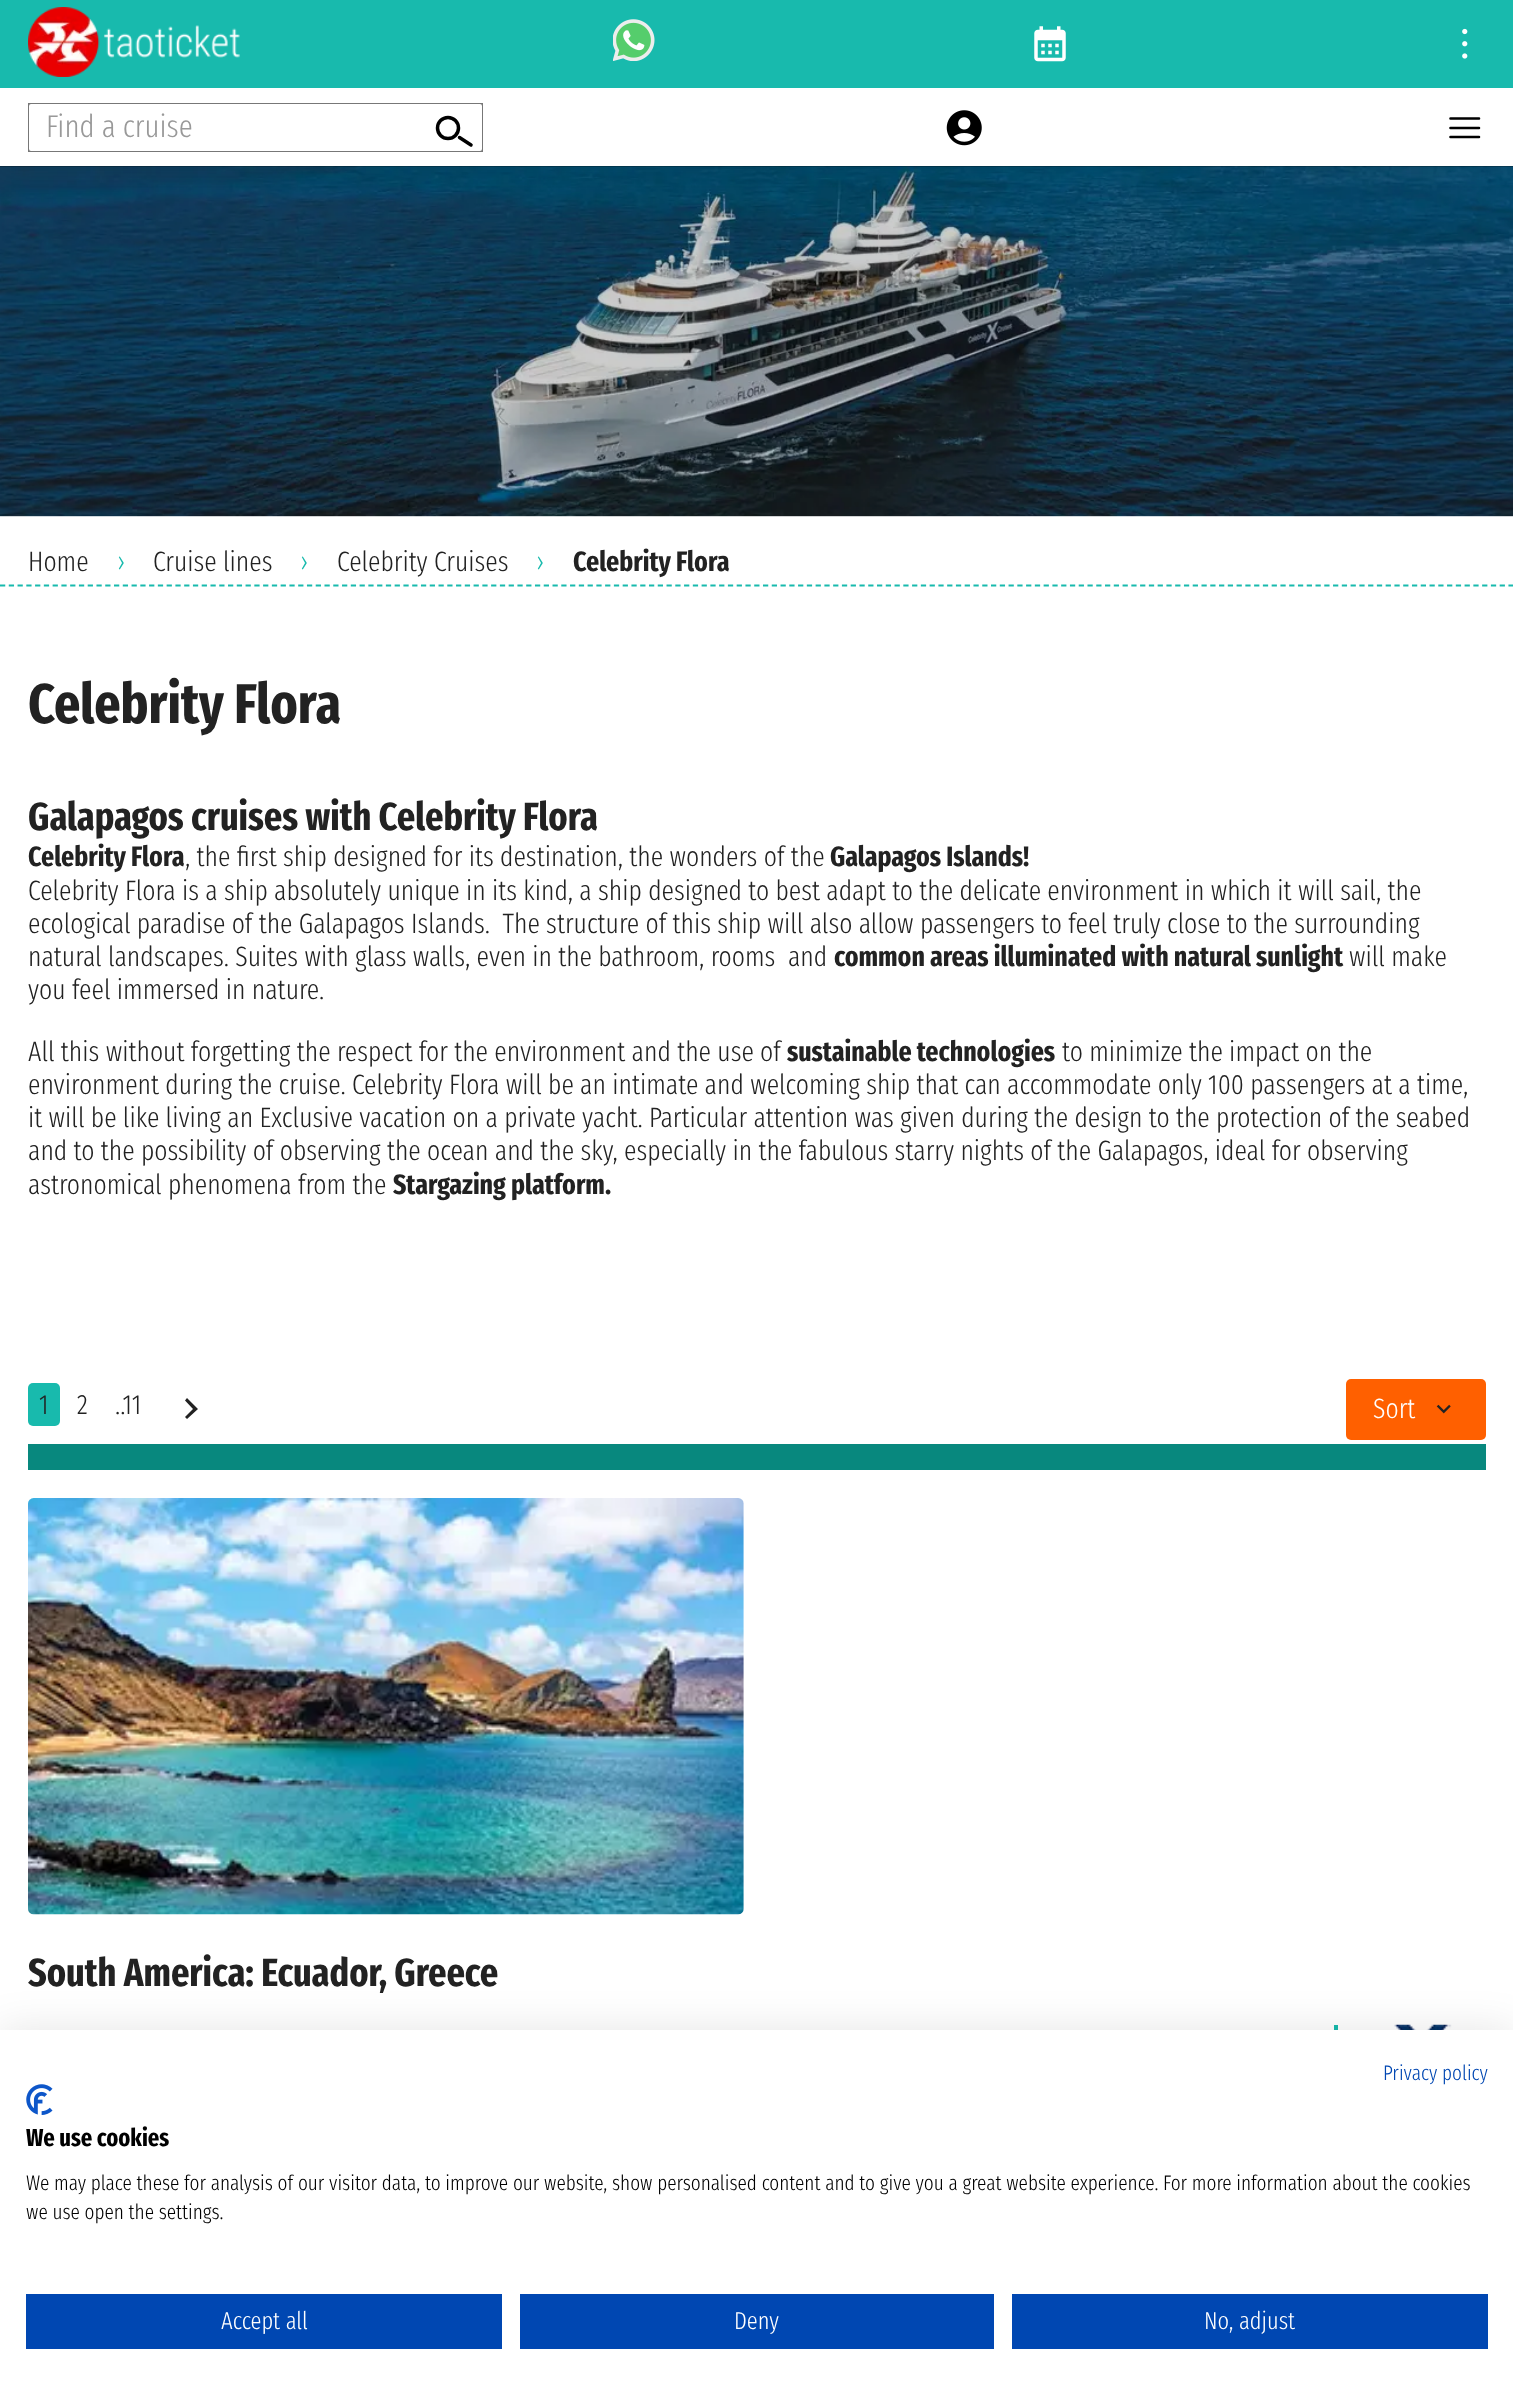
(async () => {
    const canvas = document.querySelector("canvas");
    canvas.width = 1513;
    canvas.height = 2395;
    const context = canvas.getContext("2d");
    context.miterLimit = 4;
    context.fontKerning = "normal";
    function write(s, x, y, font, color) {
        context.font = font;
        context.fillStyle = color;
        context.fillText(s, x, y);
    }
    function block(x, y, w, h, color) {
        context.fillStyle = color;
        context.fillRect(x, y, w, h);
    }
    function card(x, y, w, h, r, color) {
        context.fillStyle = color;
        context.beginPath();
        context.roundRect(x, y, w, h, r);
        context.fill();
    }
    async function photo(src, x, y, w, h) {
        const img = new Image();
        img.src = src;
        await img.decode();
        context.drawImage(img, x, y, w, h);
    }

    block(0, 0, 1513, 2395, "rgb(255, 255, 255)");
    block(0, 166, 1513, 350, "rgb(0, 0, 0)");
    await photo("media/6.png", 0, 166, 1513, 351);
    context.save();
    context.beginPath();
    context.rect(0, 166, 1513, 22);
    context.clip();
    context.fillStyle = "rgba(0, 60, 60, 0.2)";
    context.filter = "blur(17.5px)";
    context.beginPath();
    context.rect(0, 88, 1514, 78);
    context.fill();
    context.filter = "none";
    context.restore();
    block(0, 0, 1513, 88, "rgb(24, 186, 173)");
    await photo("media/1.png", 28, 7, 212, 70);
    await photo("media/2.png", 613, 19, 42, 42);
    await photo("media/3.png", 1034, 26, 32, 36);
    await photo("media/4.png", 1462, 28, 6, 31);
    context.save();
    context.beginPath();
    context.rect(28, 103, 455, 49);
    context.clip();
    context.beginPath();
    context.roundRect(28, 103, 455, 49, 3);
    context.strokeStyle = "rgb(119, 119, 119)";
    context.lineWidth = 2;
    context.stroke();
    context.restore();
    context.beginPath();
    context.arc(448, 128, 10.5, 0, Math.PI * 2);
    context.strokeStyle = "rgb(0, 0, 0)";
    context.lineWidth = 3.5;
    context.stroke();
    context.beginPath();
    context.moveTo(459.5, 137.5);
    context.lineTo(471, 145);
    context.lineCap = "round";
    context.stroke();
    write("Find a cruise", 46, 137, "300 31.5px Fira Sans Extra Condensed", "rgb(153, 153, 153)");
    await photo("media/5.png", 946, 110, 36, 36);
    context.beginPath();
    context.moveTo(1450.5, 118.5);
    context.lineTo(1479, 118.5);
    context.moveTo(1450.5, 128);
    context.lineTo(1479, 128);
    context.moveTo(1450.5, 137);
    context.lineTo(1479, 137);
    context.lineWidth = 2.6;
    context.lineJoin = "round";
    context.stroke();
    context.beginPath();
    context.moveTo(0, 585.5);
    context.lineTo(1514, 585.5);
    context.strokeStyle = "rgb(24, 186, 173)";
    context.lineWidth = 1.8;
    context.lineCap = "butt";
    context.lineJoin = "miter";
    context.setLineDash([5.25, 3.52]);
    context.stroke();
    write("Home", 28, 571, "300 28px Fira Sans Extra Condensed", "rgb(34, 34, 34)");
    write("›", 117, 571, "300 28px Fira Sans Extra Condensed", "rgb(24, 186, 173)");
    write("Cruise lines", 153, 571, "300 28px Fira Sans Extra Condensed", "rgb(34, 34, 34)");
    write("›", 300, 571, "300 28px Fira Sans Extra Condensed", "rgb(24, 186, 173)");
    write("Celebrity Cruises", 337, 571, "300 28px Fira Sans Extra Condensed", "rgb(34, 34, 34)");
    write("›", 536, 571, "300 28px Fira Sans Extra Condensed", "rgb(24, 186, 173)");
    write("Celebrity Flora", 573, 571, "bold 28px Fira Sans Extra Condensed", "rgb(34, 34, 34)");
    write("Celebrity Flora", 28, 723, "bold 56px Fira Sans Extra Condensed", "rgb(34, 34, 34)");
    write("Galapagos cruises with Celebrity Flora", 28, 830, "bold 39.25px Fira Sans Extra Condensed", "rgb(34, 34, 34)");
    write("Celebrity Flora", 28, 866, "bold 28px Fira Sans Extra Condensed", "rgb(34, 34, 34)");
    write(", the first ship designed for its destination, the wonders of the", 185, 866, "300 28px Fira Sans Extra Condensed", "rgb(34, 34, 34)");
    write("Galapagos Islands!", 830, 866, "bold 28px Fira Sans Extra Condensed", "rgb(34, 34, 34)");
    write("Celebrity Flora is a ship absolutely unique in its kind, a ship designed to best adapt to the delicate environment in which it will sail, the", 28, 900, "300 28px Fira Sans Extra Condensed", "rgb(34, 34, 34)");
    write("ecological paradise of the Galapagos Islands.  The structure of this ship will also allow passengers to feel truly close to the surrounding", 28, 933, "300 28px Fira Sans Extra Condensed", "rgb(34, 34, 34)");
    write("natural landscapes. Suites with glass walls, even in the bathroom, rooms  and", 28, 966, "300 28px Fira Sans Extra Condensed", "rgb(34, 34, 34)");
    write("common areas illuminated with natural sunlight", 834, 966, "bold 28px Fira Sans Extra Condensed", "rgb(34, 34, 34)");
    write("will make", 1349, 966, "300 28px Fira Sans Extra Condensed", "rgb(34, 34, 34)");
    write("you feel immersed in nature.", 28, 999, "300 28px Fira Sans Extra Condensed", "rgb(34, 34, 34)");
    write("All this without forgetting the respect for the environment and the use of", 28, 1061, "300 28px Fira Sans Extra Condensed", "rgb(34, 34, 34)");
    write("sustainable technologies", 787, 1061, "bold 28px Fira Sans Extra Condensed", "rgb(34, 34, 34)");
    write("to minimize the impact on the", 1062, 1061, "300 28px Fira Sans Extra Condensed", "rgb(34, 34, 34)");
    write("environment during the cruise. Celebrity Flora will be an intimate and welcoming ship that can accommodate only 100 passengers at a time,", 28, 1094, "300 28px Fira Sans Extra Condensed", "rgb(34, 34, 34)");
    write("it will be like living an Exclusive vacation on a private yacht. Particular attention was given during the design to the protection of the seabed", 28, 1127, "300 28px Fira Sans Extra Condensed", "rgb(34, 34, 34)");
    write("and to the possibility of observing the ocean and the sky, especially in the fabulous starry nights of the Galapagos, ideal for observing", 28, 1160, "300 28px Fira Sans Extra Condensed", "rgb(34, 34, 34)");
    write("astronomical phenomena from the", 28, 1194, "300 28px Fira Sans Extra Condensed", "rgb(34, 34, 34)");
    write("Stargazing platform.", 393, 1194, "bold 28px Fira Sans Extra Condensed", "rgb(34, 34, 34)");
    block(28, 1444, 1458, 26, "rgb(8, 136, 126)");
    card(28, 1383, 32, 43, 5, "rgb(24, 186, 173)");
    write("1", 39, 1414, "300 28px Fira Sans Extra Condensed", "rgb(34, 34, 34)");
    write("2", 77, 1414, "300 28px Fira Sans Extra Condensed", "rgb(34, 34, 34)");
    write("..11", 115, 1414, "300 28px Fira Sans Extra Condensed", "rgb(34, 34, 34)");
    context.beginPath();
    context.moveTo(187, 1398);
    context.lineTo(185, 1400.5);
    context.lineTo(193, 1409);
    context.lineTo(185, 1417);
    context.lineTo(187, 1419);
    context.lineTo(198, 1409);
    context.closePath();
    context.fill();
    card(1346, 1379, 140, 61, 5, "rgb(255, 96, 0)");
    write("Sort", 1373, 1418, "300 28px Fira Sans Extra Condensed", "rgb(255, 255, 255)");
    await photo("media/7.png", 1436, 1404, 15, 10);
    await photo("media/8.png", 28, 1498, 716, 417);
    write("South America: Ecuador, Greece", 28, 1986, "bold 39.25px Fira Sans Extra Condensed", "rgb(34, 34, 34)");
    block(1334, 2025, 4, 5, "rgb(24, 186, 173)");
    await photo("media/9.png", 1394, 2024, 58, 6);
    context.fillStyle = "rgba(0, 0, 0, 0.1)";
    context.filter = "blur(21px)";
    context.beginPath();
    context.rect(0, 2030, 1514, 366);
    context.fill();
    context.filter = "none";
    block(0, 2030, 1513, 365, "rgb(255, 255, 255)");
    write("Privacy policy", 1383, 2080, "300 21px Fira Sans Extra Condensed", "rgb(0, 71, 178)");
    await photo("media/10.png", 26, 2084, 27, 31);
    write("We use cookies", 26, 2146, "bold 24.5px Fira Sans Extra Condensed", "rgb(0, 0, 0)");
    write("We may place these for analysis of our visitor data, to improve our website, show personalised content and to give you a great website experience. For more information about the cookies", 26, 2190, "300 21px Fira Sans Extra Condensed", "rgb(0, 0, 0)");
    write("we use open the settings.", 26, 2219, "300 21px Fira Sans Extra Condensed", "rgb(0, 0, 0)");
    block(26, 2294, 476, 55, "rgb(0, 71, 178)");
    write("Accept all", 221, 2329, "300 24.5px Fira Sans Extra Condensed", "rgb(255, 255, 255)");
    block(520, 2294, 474, 55, "rgb(0, 71, 178)");
    write("Deny", 734, 2329, "300 24.5px Fira Sans Extra Condensed", "rgb(255, 255, 255)");
    block(1012, 2294, 476, 55, "rgb(0, 71, 178)");
    write("No, adjust", 1204, 2329, "300 24.5px Fira Sans Extra Condensed", "rgb(255, 255, 255)");
})();
